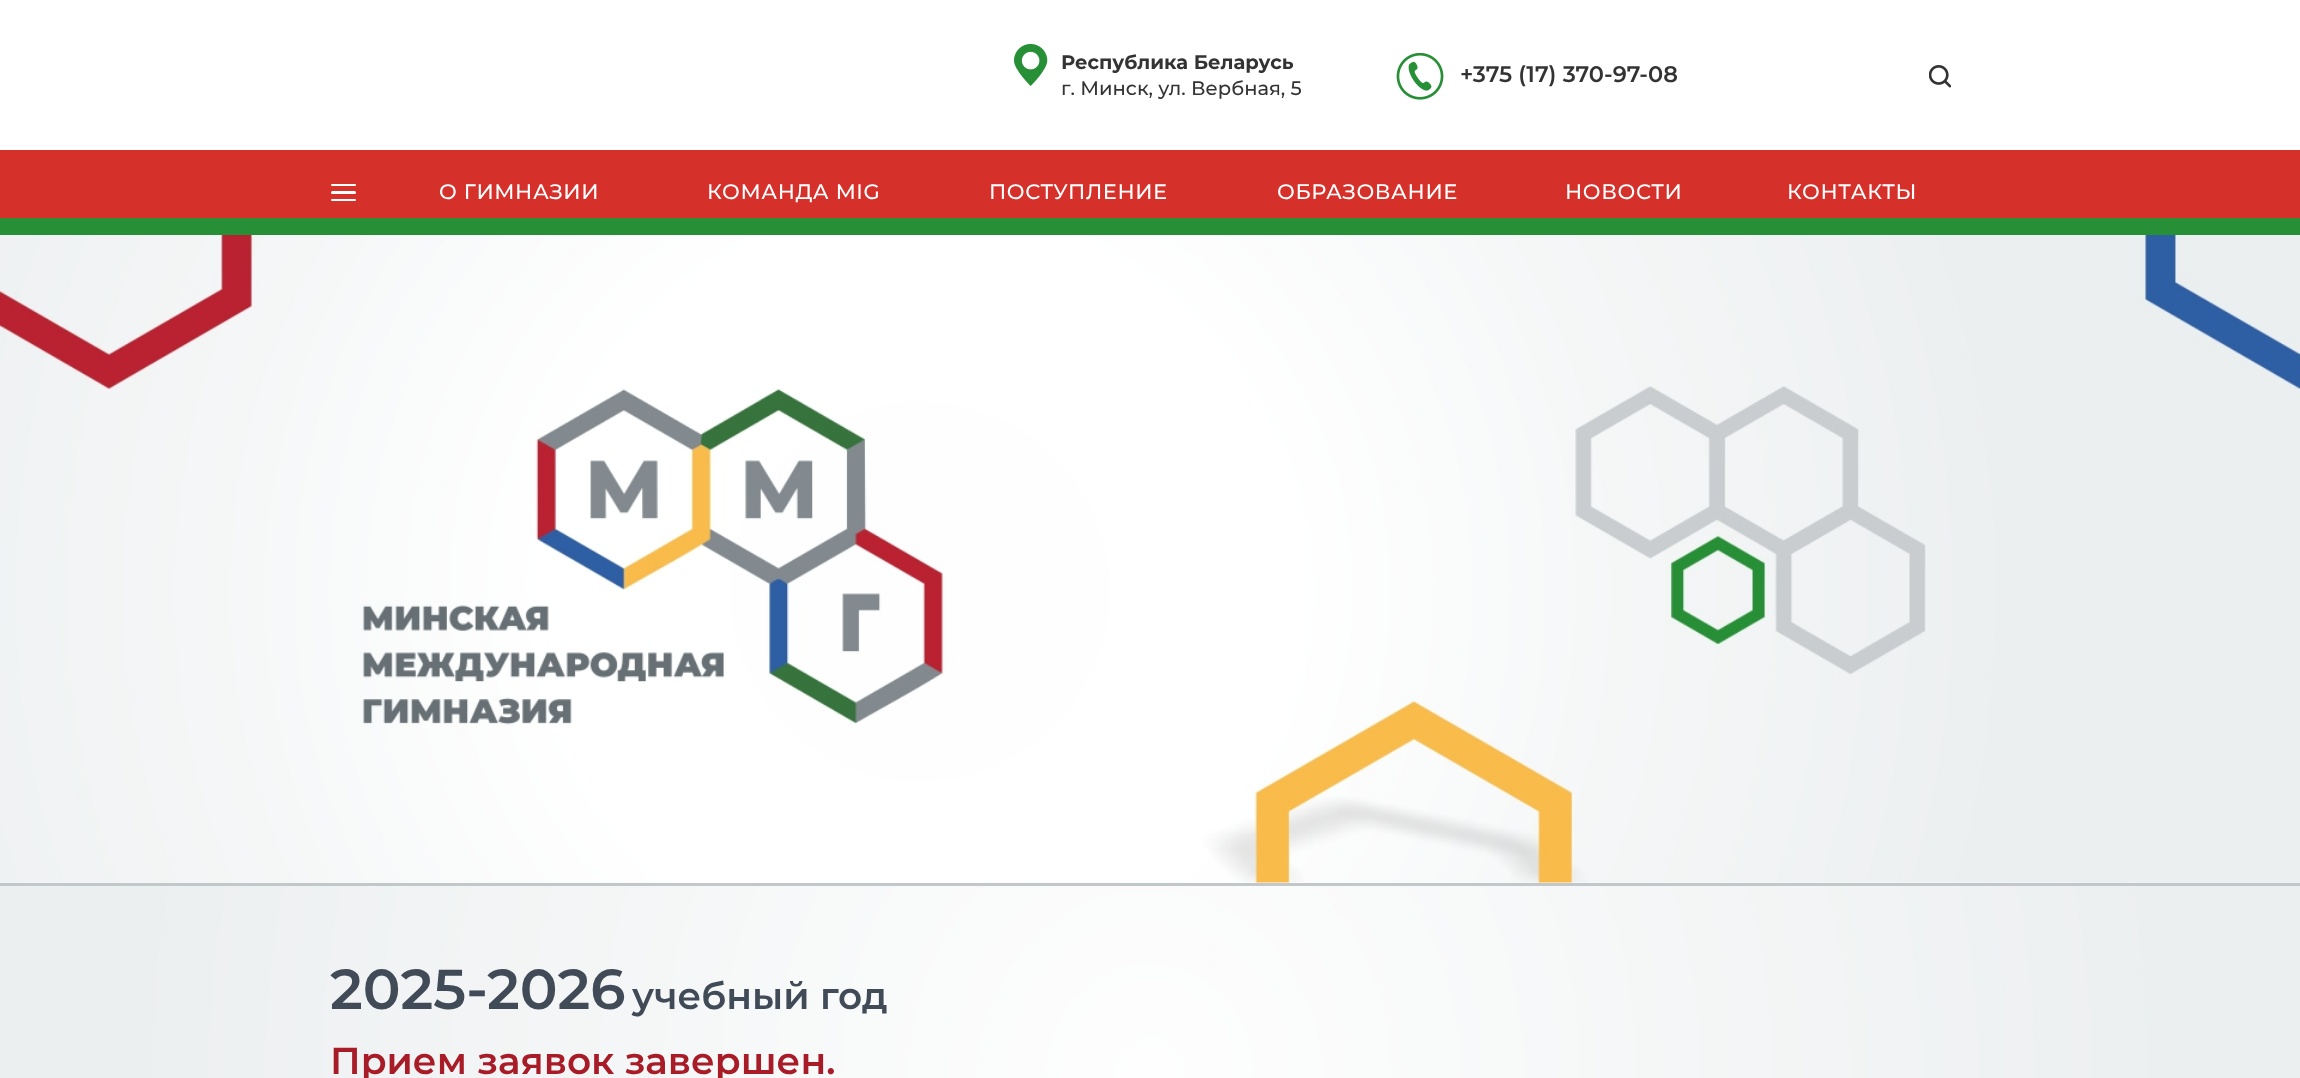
(async () => {
    const canvas = document.querySelector("canvas");
    canvas.width = 2300;
    canvas.height = 1078;
    const context = canvas.getContext("2d");
    context.miterLimit = 4;
    context.fontKerning = "normal";
    function write(s, x, y, font, color) {
        context.font = font;
        context.fillStyle = color;
        context.fillText(s, x, y);
    }
    function block(x, y, w, h, color) {
        context.fillStyle = color;
        context.fillRect(x, y, w, h);
    }
    function card(x, y, w, h, r, color) {
        context.fillStyle = color;
        context.beginPath();
        context.roundRect(x, y, w, h, r);
        context.fill();
    }
    async function photo(src, x, y, w, h) {
        const img = new Image();
        img.src = src;
        await img.decode();
        context.drawImage(img, x, y, w, h);
    }

    block(0, 0, 2300, 1078, "rgb(255, 255, 255)");
    await photo("media/1.png", 1014, 44, 34, 42);
    write("Республика Беларусь", 1061, 69, "bold 19.5px Montserrat", "rgb(51, 51, 51)");
    write("г. Минск, ул. Вербная, 5", 1061, 95, "500 19.5px Montserrat", "rgb(51, 51, 51)");
    await photo("media/2.png", 1396, 53, 48, 47);
    write("+375 (17) 370-97-08", 1460, 82, "600 22.5px Montserrat", "rgb(51, 51, 51)");
    await photo("media/3.png", 1929, 65, 22, 23);
    block(0, 150, 2300, 68, "rgb(213, 48, 42)");
    block(0, 218, 2300, 17, "rgb(39, 143, 54)");
    card(331, 184, 25, 2, 1, "rgb(255, 255, 255)");
    card(331, 191, 25, 3, 1.5, "rgb(255, 255, 255)");
    card(331, 199, 25, 2, 1, "rgb(255, 255, 255)");
    context.letterSpacing = "0.6px";
    write("О ГИМНАЗИИ", 439, 199, "500 21px Montserrat", "rgb(255, 255, 255)");
    write("КОМАНДА MIG", 707, 199, "500 21px Montserrat", "rgb(255, 255, 255)");
    write("ПОСТУПЛЕНИЕ", 989, 199, "500 21px Montserrat", "rgb(255, 255, 255)");
    write("ОБРАЗОВАНИЕ", 1277, 199, "500 21px Montserrat", "rgb(255, 255, 255)");
    write("НОВОСТИ", 1565, 199, "500 21px Montserrat", "rgb(255, 255, 255)");
    write("КОНТАКТЫ", 1787, 199, "500 21px Montserrat", "rgb(255, 255, 255)");
    await photo("media/5.png", 0, 882, 2300, 196);
    await photo("media/4.png", 0, 235, 2300, 648);
    block(0, 883, 2300, 3, "rgb(194, 199, 202)");
    context.letterSpacing = "0px";
    write("2025-2026", 330, 1009, "600 56.25px Montserrat", "rgb(64, 75, 87)");
    write("учебный год", 632, 1009, "600 37.5px Montserrat", "rgb(64, 75, 87)");
    write("Прием заявок завершен.", 330, 1074, "600 37.5px Montserrat", "rgb(168, 28, 40)");
})();
